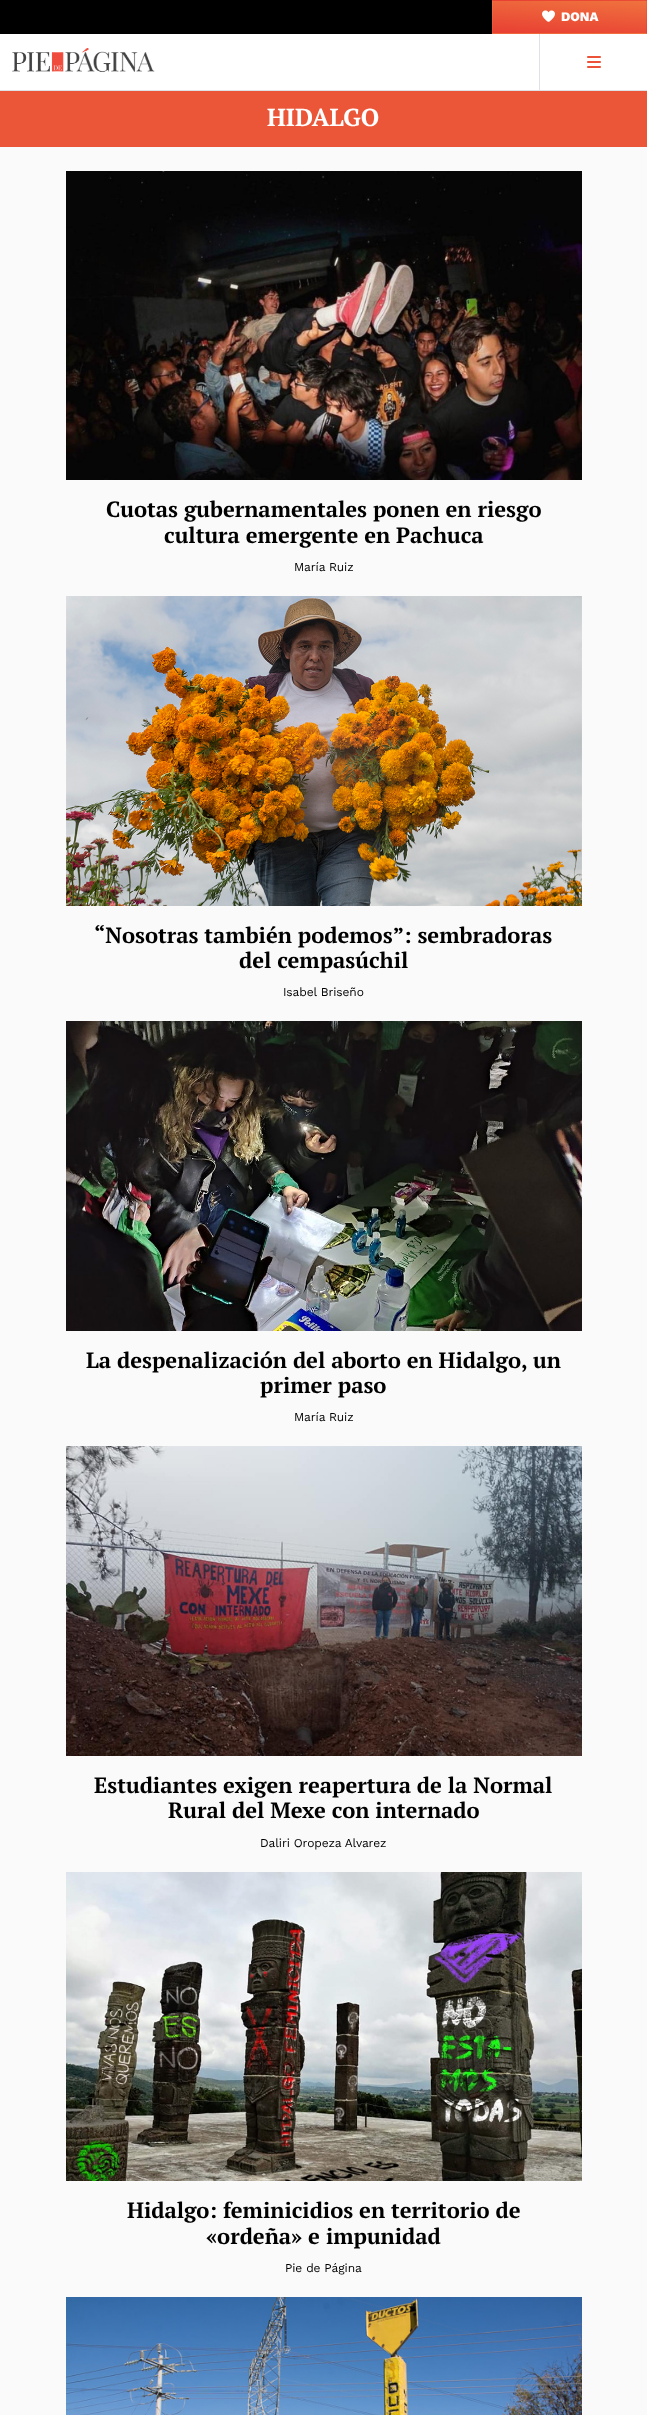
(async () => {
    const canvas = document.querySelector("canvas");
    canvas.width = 647;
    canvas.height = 2415;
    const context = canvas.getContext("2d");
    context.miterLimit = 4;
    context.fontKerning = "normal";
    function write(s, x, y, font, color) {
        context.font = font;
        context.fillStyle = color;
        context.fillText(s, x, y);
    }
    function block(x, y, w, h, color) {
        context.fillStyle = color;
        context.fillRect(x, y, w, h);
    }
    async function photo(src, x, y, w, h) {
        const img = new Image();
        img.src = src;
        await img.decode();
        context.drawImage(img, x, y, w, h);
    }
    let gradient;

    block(0, 0, 647, 2415, "rgb(250, 250, 250)");
    block(0, 0, 492, 34, "rgb(0, 0, 0)");
    gradient = context.createLinearGradient(418, -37, 415, 7.2);
    gradient.addColorStop(0, "rgb(240, 115, 62)");
    gradient.addColorStop(1, "rgb(232, 62, 51)");
    context.fillStyle = gradient;
    context.fillRect(492, 0, 1, 1);
    gradient = context.createLinearGradient(571, -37, 568, 7.2);
    gradient.addColorStop(0, "rgb(240, 115, 62)");
    gradient.addColorStop(1, "rgb(232, 62, 51)");
    context.fillStyle = gradient;
    context.fillRect(493, 0, 153, 1);
    gradient = context.createLinearGradient(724, -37, 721, 7.2);
    gradient.addColorStop(0, "rgb(240, 115, 62)");
    gradient.addColorStop(1, "rgb(232, 62, 51)");
    context.fillStyle = gradient;
    context.fillRect(646, 0, 1, 1);
    gradient = context.createLinearGradient(418, -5.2, 415, 39);
    gradient.addColorStop(0, "rgb(240, 115, 62)");
    gradient.addColorStop(1, "rgb(232, 62, 51)");
    context.fillStyle = gradient;
    context.fillRect(492, 1, 1, 32);
    gradient = context.createLinearGradient(571, -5.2, 568, 39);
    gradient.addColorStop(0, "rgb(240, 115, 62)");
    gradient.addColorStop(1, "rgb(232, 62, 51)");
    context.fillStyle = gradient;
    context.fillRect(493, 1, 153, 32);
    gradient = context.createLinearGradient(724, -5.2, 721, 39);
    gradient.addColorStop(0, "rgb(240, 115, 62)");
    gradient.addColorStop(1, "rgb(232, 62, 51)");
    context.fillStyle = gradient;
    context.fillRect(646, 1, 1, 32);
    gradient = context.createLinearGradient(418, 27, 415, 71);
    gradient.addColorStop(0, "rgb(240, 115, 62)");
    gradient.addColorStop(1, "rgb(232, 62, 51)");
    context.fillStyle = gradient;
    context.fillRect(492, 33, 1, 1);
    gradient = context.createLinearGradient(571, 27, 568, 71);
    gradient.addColorStop(0, "rgb(240, 115, 62)");
    gradient.addColorStop(1, "rgb(232, 62, 51)");
    context.fillStyle = gradient;
    context.fillRect(493, 33, 153, 1);
    gradient = context.createLinearGradient(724, 27, 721, 71);
    gradient.addColorStop(0, "rgb(240, 115, 62)");
    gradient.addColorStop(1, "rgb(232, 62, 51)");
    context.fillStyle = gradient;
    context.fillRect(646, 33, 1, 1);
    await photo("media/1.png", 542, 10, 13, 12);
    write("DONA", 561, 21, "800 13px Work Sans", "rgb(255, 255, 255)");
    block(0, 34, 647, 56, "rgb(255, 255, 255)");
    block(0, 90, 647, 1, "rgb(222, 226, 230)");
    await photo("media/2.png", 12, 48, 143, 25);
    block(539, 34, 1, 56, "rgb(222, 226, 230)");
    await photo("media/3.png", 587, 56, 14, 12);
    block(0, 91, 647, 56, "rgb(236, 86, 56)");
    write("HIDALGO", 267, 126, "bold 24.5px PT Serif", "rgb(255, 255, 255)");
    await photo("media/4.png", 66, 171, 516, 309);
    write("Cuotas gubernamentales ponen en riesgo", 106, 517, "bold 22px PT Serif", "rgb(0, 0, 0)");
    write("cultura emergente en Pachuca", 164, 543, "bold 22px PT Serif", "rgb(0, 0, 0)");
    context.letterSpacing = "-0.1px";
    write("María Ruiz", 294, 571, "12px Work Sans", "rgb(0, 0, 0)");
    await photo("media/5.png", 66, 596, 516, 310);
    context.letterSpacing = "0px";
    write("“Nosotras también podemos”: sembradoras", 94, 943, "bold 22px PT Serif", "rgb(0, 0, 0)");
    write("del cempasúchil", 239, 968, "bold 22px PT Serif", "rgb(0, 0, 0)");
    context.letterSpacing = "-0.1px";
    write("Isabel Briseño", 283, 996, "12px Work Sans", "rgb(0, 0, 0)");
    await photo("media/6.png", 66, 1021, 516, 310);
    context.letterSpacing = "0px";
    write("La despenalización del aborto en Hidalgo, un", 86, 1368, "bold 22px PT Serif", "rgb(0, 0, 0)");
    write("primer paso", 260, 1393, "bold 22px PT Serif", "rgb(0, 0, 0)");
    context.letterSpacing = "-0.1px";
    write("María Ruiz", 294, 1421, "12px Work Sans", "rgb(0, 0, 0)");
    await photo("media/7.png", 66, 1446, 516, 310);
    context.letterSpacing = "0px";
    write("Estudiantes exigen reapertura de la Normal", 94, 1793, "bold 22px PT Serif", "rgb(0, 0, 0)");
    write("Rural del Mexe con internado", 168, 1818, "bold 22px PT Serif", "rgb(0, 0, 0)");
    context.letterSpacing = "-0.1px";
    write("Daliri Oropeza Alvarez", 260, 1847, "12px Work Sans", "rgb(0, 0, 0)");
    await photo("media/8.png", 66, 1872, 516, 309);
    context.letterSpacing = "0px";
    write("Hidalgo: feminicidios en territorio de", 127, 2218, "bold 22px PT Serif", "rgb(0, 0, 0)");
    write("«ordeña» e impunidad", 206, 2244, "bold 22px PT Serif", "rgb(0, 0, 0)");
    context.letterSpacing = "-0.1px";
    write("Pie de Página", 285, 2272, "12px Work Sans", "rgb(0, 0, 0)");
    await photo("media/9.png", 66, 2297, 516, 118);
})();
